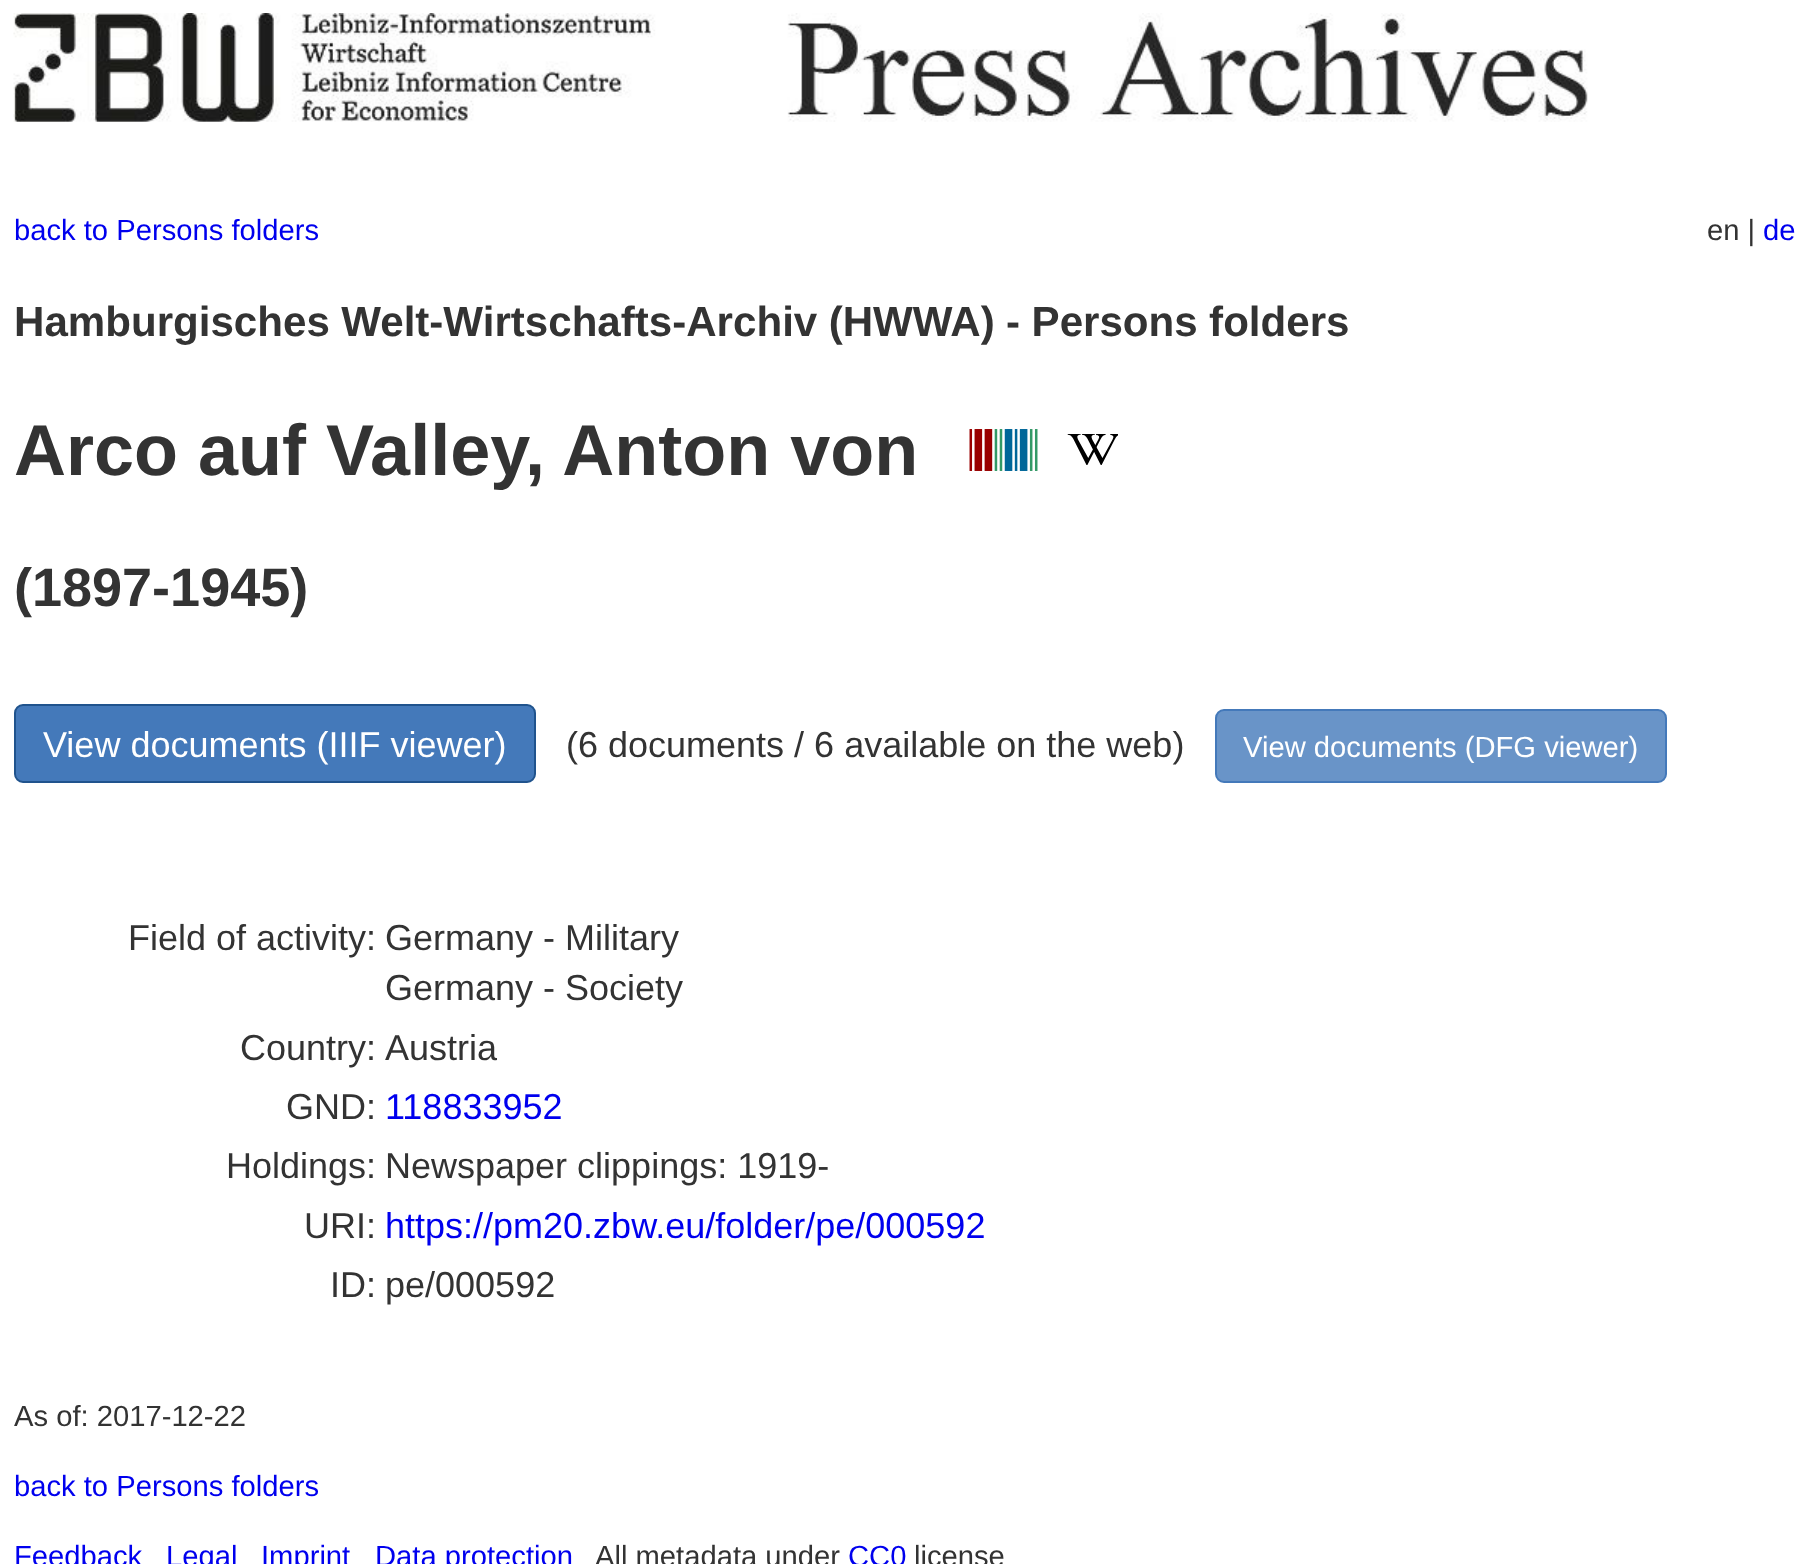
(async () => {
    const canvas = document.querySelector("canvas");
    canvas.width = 1809;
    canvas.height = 1564;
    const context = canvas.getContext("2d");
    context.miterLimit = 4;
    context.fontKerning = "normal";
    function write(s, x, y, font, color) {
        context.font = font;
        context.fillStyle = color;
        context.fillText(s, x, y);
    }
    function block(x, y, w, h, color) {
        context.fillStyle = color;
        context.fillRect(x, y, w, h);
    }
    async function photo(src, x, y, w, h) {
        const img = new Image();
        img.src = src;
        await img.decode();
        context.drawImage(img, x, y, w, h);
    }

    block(0, 0, 1809, 1564, "rgb(255, 255, 255)");
    await photo("media/1.png", 13, 13, 1575, 109);
    write("back to Persons folders", 14, 240, "29.2px Liberation Sans", "rgb(0, 0, 238)");
    write("en |", 1707, 240, "29.2px Liberation Sans", "rgb(51, 51, 51)");
    write("de", 1763, 240, "29.2px Liberation Sans", "rgb(0, 0, 238)");
    context.wordSpacing = "-0.25px";
    write("Hamburgisches Welt-Wirtschafts-Archiv (HWWA) - Persons folders", 14, 336, "bold 42.1px Liberation Sans", "rgb(51, 51, 51)");
    context.wordSpacing = "0px";
    write("Arco auf Valley, Anton von", 14, 475, "bold 72px Liberation Sans", "rgb(51, 51, 51)");
    await photo("media/2.png", 969, 429, 69, 42);
    await photo("media/3.png", 1067, 434, 51, 31);
    write("(1897-1945)", 14, 606, "bold 54px Liberation Sans", "rgb(51, 51, 51)");
    context.fillStyle = "rgb(68, 121, 186)";
    context.beginPath();
    context.roundRect(15, 705, 520, 77, 8);
    context.fill();
    context.strokeStyle = "rgb(32, 83, 141)";
    context.lineWidth = 2;
    context.stroke();
    write("View documents (IIIF viewer)", 43, 757, "36px Liberation Sans", "rgb(255, 255, 255)");
    write("(6 documents / 6 available on the web)", 566, 757, "36px Liberation Sans", "rgb(51, 51, 51)");
    context.fillStyle = "rgb(105, 148, 200)";
    context.beginPath();
    context.roundRect(1216, 710, 450, 72, 8);
    context.fill();
    context.strokeStyle = "rgb(68, 121, 186)";
    context.stroke();
    write("View documents (DFG viewer)", 1243, 757, "29.2px Liberation Sans", "rgb(255, 255, 255)");
    write("Field of activity:", 128, 950, "36px Liberation Sans", "rgb(51, 51, 51)");
    write("Germany - Military", 385, 950, "36px Liberation Sans", "rgb(51, 51, 51)");
    write("Germany - Society", 385, 1000, "36px Liberation Sans", "rgb(51, 51, 51)");
    write("Country:", 240, 1060, "36px Liberation Sans", "rgb(51, 51, 51)");
    write("Austria", 385, 1060, "36px Liberation Sans", "rgb(51, 51, 51)");
    write("GND:", 286, 1119, "36px Liberation Sans", "rgb(51, 51, 51)");
    write("118833952", 385, 1119, "36px Liberation Sans", "rgb(0, 0, 238)");
    write("Holdings:", 226, 1178, "36px Liberation Sans", "rgb(51, 51, 51)");
    write("Newspaper clippings: 1919-", 385, 1178, "36px Liberation Sans", "rgb(51, 51, 51)");
    write("URI:", 304, 1238, "36px Liberation Sans", "rgb(51, 51, 51)");
    write("https://pm20.zbw.eu/folder/pe/000592", 385, 1238, "36px Liberation Sans", "rgb(0, 0, 238)");
    write("ID:", 330, 1297, "36px Liberation Sans", "rgb(51, 51, 51)");
    write("pe/000592", 385, 1297, "36px Liberation Sans", "rgb(51, 51, 51)");
    write("As of: 2017-12-22", 14, 1426, "29.2px Liberation Sans", "rgb(51, 51, 51)");
    write("back to Persons folders", 14, 1496, "29.2px Liberation Sans", "rgb(0, 0, 238)");
    write("Feedback", 14, 1566, "29.2px Liberation Sans", "rgb(0, 0, 238)");
    write("Legal", 166, 1566, "29.2px Liberation Sans", "rgb(0, 0, 238)");
    write("Imprint", 261, 1566, "29.2px Liberation Sans", "rgb(0, 0, 238)");
    write("Data protection", 375, 1566, "29.2px Liberation Sans", "rgb(0, 0, 238)");
    write("All metadata under", 595, 1566, "29.2px Liberation Sans", "rgb(51, 51, 51)");
    write("CC0", 848, 1566, "29.2px Liberation Sans", "rgb(0, 0, 238)");
    write("license", 914, 1566, "29.2px Liberation Sans", "rgb(51, 51, 51)");
})();
